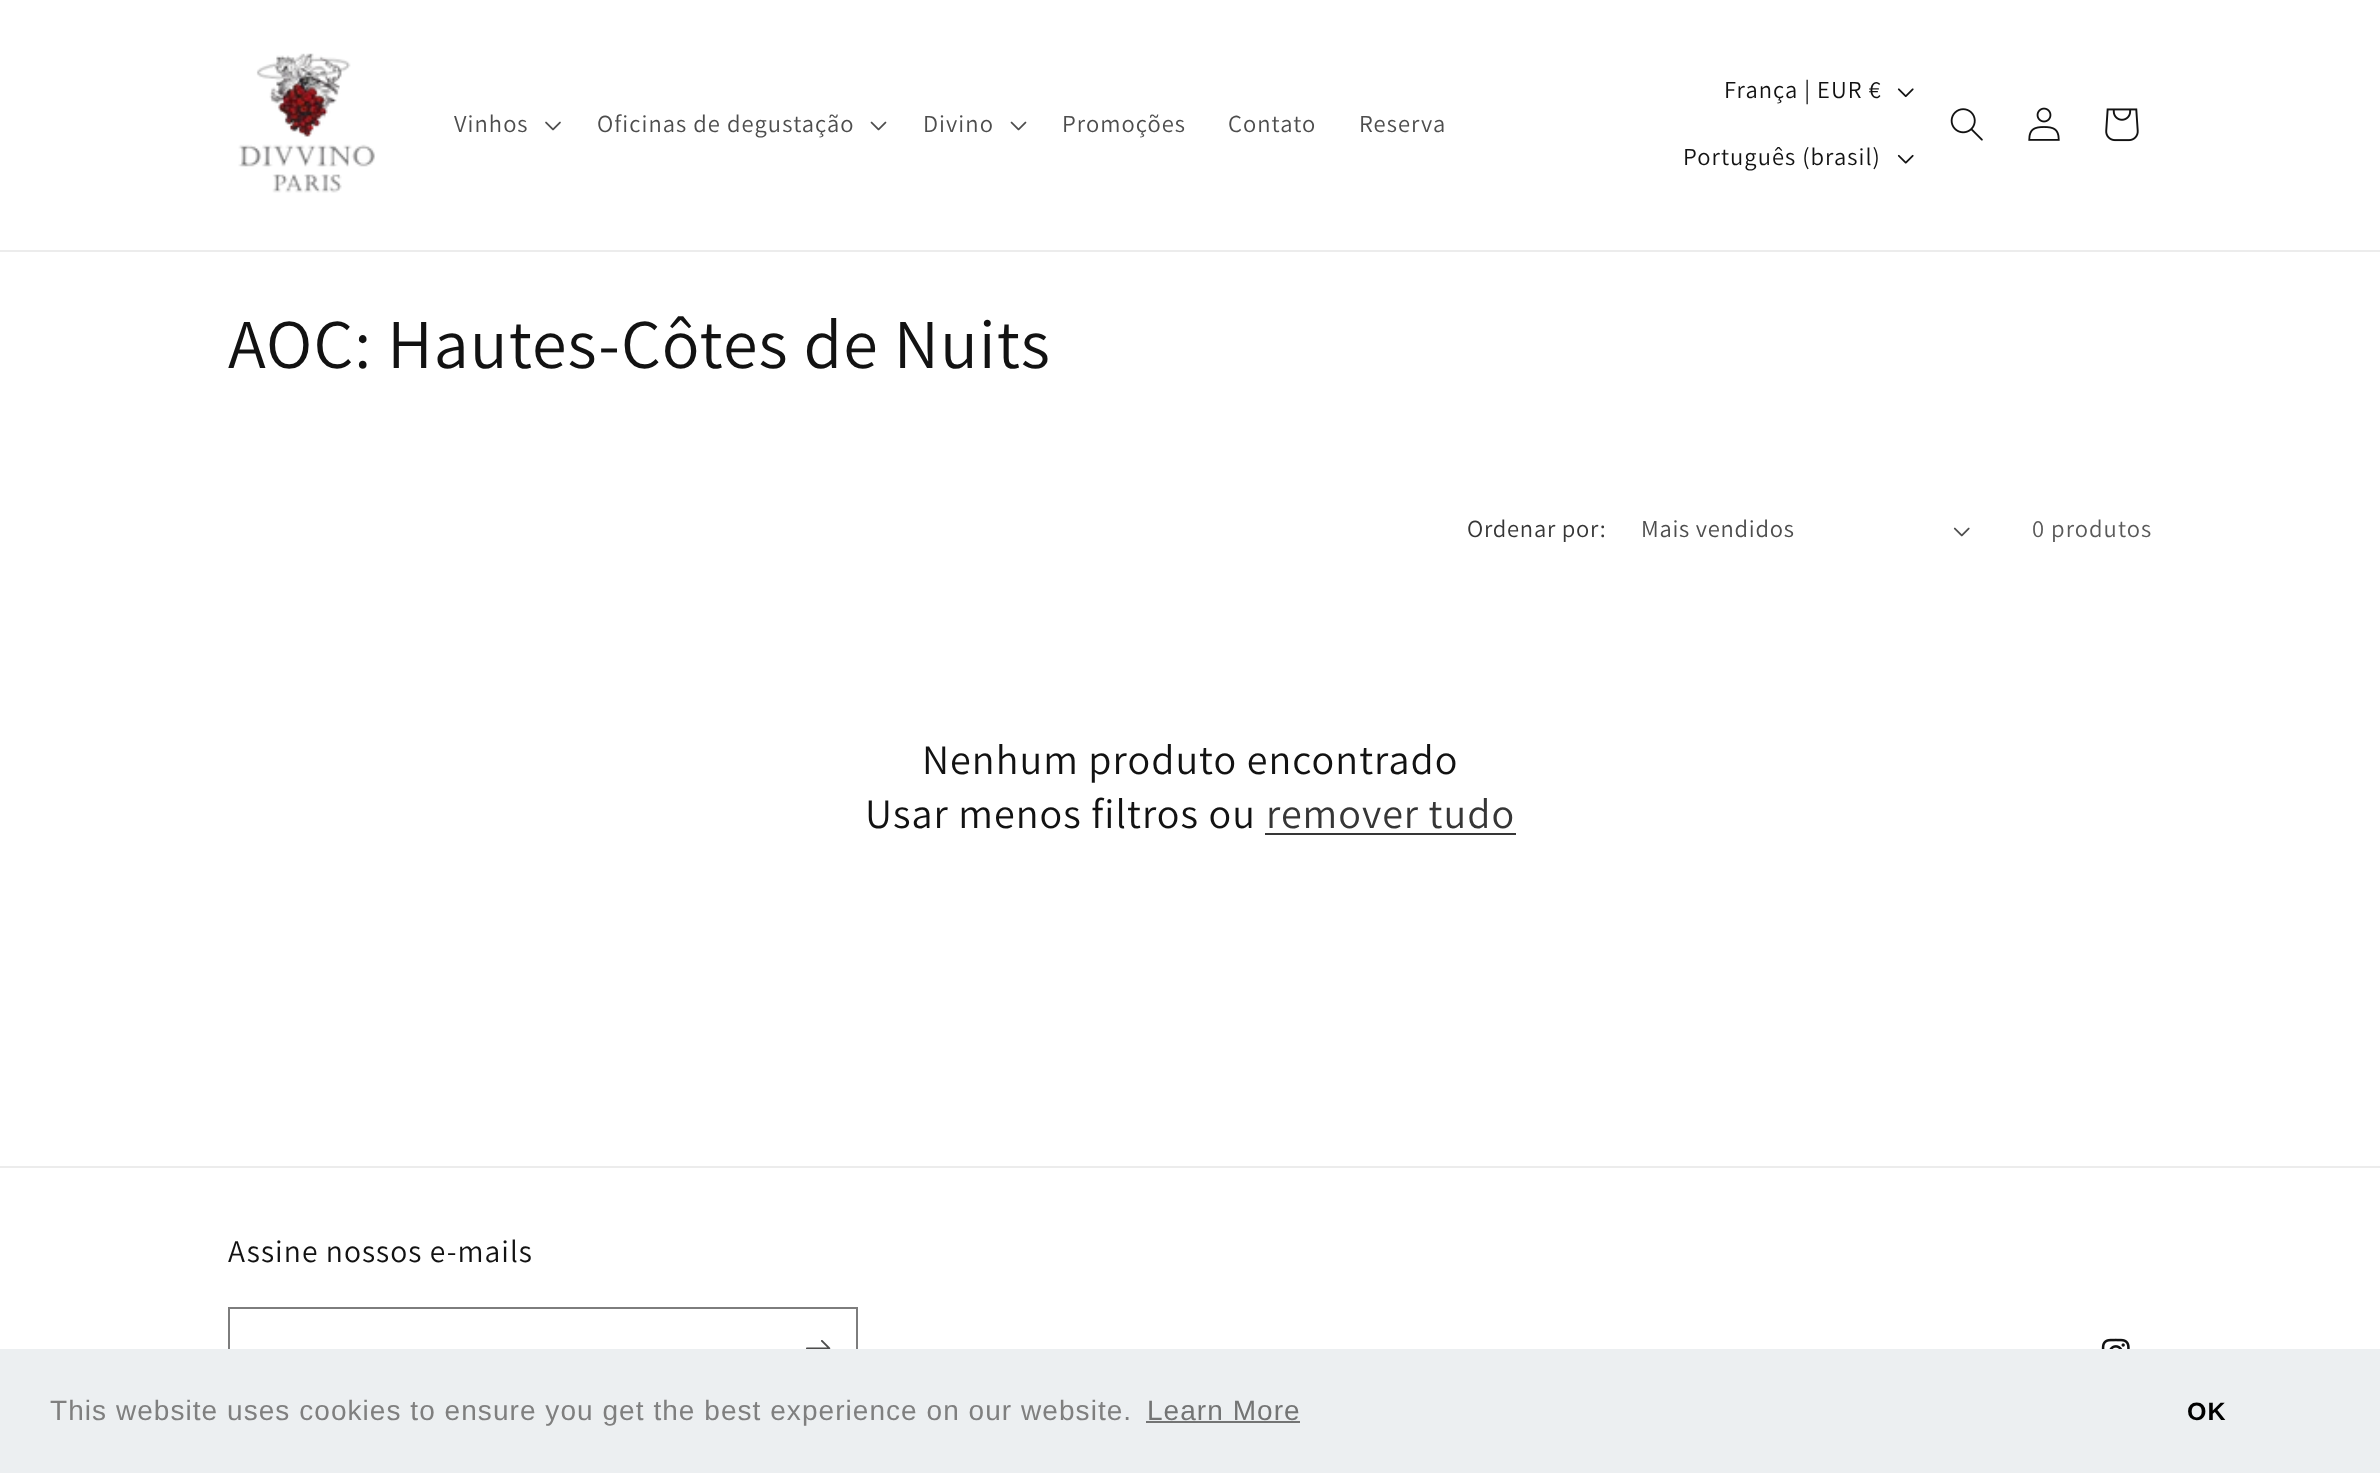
(async () => {
    const canvas = document.querySelector("canvas");
    canvas.width = 2380;
    canvas.height = 1473;
    const context = canvas.getContext("2d");
    context.miterLimit = 4;
    context.fontKerning = "normal";
    function write(s, x, y, font, color) {
        context.font = font;
        context.fillStyle = color;
        context.fillText(s, x, y);
    }
    function block(x, y, w, h, color) {
        context.fillStyle = color;
        context.fillRect(x, y, w, h);
    }
    async function photo(src, x, y, w, h) {
        const img = new Image();
        img.src = src;
        await img.decode();
        context.drawImage(img, x, y, w, h);
    }

    block(0, 0, 2380, 1473, "rgb(255, 255, 255)");
    block(0, 250, 2380, 2, "rgb(236, 236, 236)");
    await photo("media/1.png", 238, 53, 137, 140);
    context.letterSpacing = "1.05px";
    write("Vinhos", 454, 132, "24.5px Assistant", "rgb(77, 77, 77)");
    await photo("media/2.png", 545, 121, 16, 10);
    write("Oficinas de degustação", 597, 132, "24.5px Assistant", "rgb(77, 77, 77)");
    await photo("media/3.png", 870, 121, 17, 10);
    write("Divino", 923, 132, "24.5px Assistant", "rgb(77, 77, 77)");
    await photo("media/3.png", 1010, 121, 17, 10);
    write("Promoções", 1062, 132, "24.5px Assistant", "rgb(77, 77, 77)");
    write("Contato", 1228, 132, "24.5px Assistant", "rgb(77, 77, 77)");
    write("Reserva", 1359, 132, "24.5px Assistant", "rgb(77, 77, 77)");
    write("França | EUR €", 1724, 98, "24.5px Assistant", "rgb(18, 18, 18)");
    await photo("media/4.png", 1897, 88, 17, 10);
    write("Português (brasil)", 1683, 165, "24.5px Assistant", "rgb(18, 18, 18)");
    await photo("media/5.png", 1897, 154, 17, 10);
    await photo("media/6.png", 1950, 108, 33, 33);
    await photo("media/7.png", 2028, 107, 32, 34);
    await photo("media/8.png", 2105, 108, 34, 34);
    write("AOC: Hautes-Côtes de Nuits", 228, 368, "70px Assistant", "rgb(18, 18, 18)");
    context.letterSpacing = "0.75px";
    write("Ordenar por:", 1467, 537, "24.5px Assistant", "rgb(54, 54, 54)");
    write("Mais vendidos", 1641, 537, "24.5px Assistant", "rgb(77, 77, 77)");
    await photo("media/9.png", 1953, 527, 17, 10);
    context.letterSpacing = "1.05px";
    write("0 produtos", 2032, 537, "24.5px Assistant", "rgb(89, 89, 89)");
    write("Nenhum produto encontrado", 922, 774, "42px Assistant", "rgb(18, 18, 18)");
    write("Usar menos filtros ou", 865, 828, "42px Assistant", "rgb(18, 18, 18)");
    write("remover tudo", 1266, 828, "42px Assistant", "rgb(54, 54, 54)");
    block(1265, 833, 251, 2, "rgb(54, 54, 54)");
    block(0, 1166, 2380, 2, "rgb(236, 236, 236)");
    write("Assine nossos e-mails", 228, 1262, "31.5px Assistant", "rgb(18, 18, 18)");
    context.strokeStyle = "rgb(125, 125, 125)";
    context.lineWidth = 2;
    context.strokeRect(229, 1308, 628, 81);
    await photo("media/10.png", 806, 1340, 25, 9);
    await photo("media/11.png", 2101, 1338, 29, 11);
    block(0, 1349, 2380, 124, "rgb(236, 239, 241)");
    write("This website uses cookies to ensure you get the best experience on our website.", 50, 1420, "28px Liberation Sans", "rgb(127, 127, 127)");
    write("Learn More", 1147, 1420, "28px Liberation Sans", "rgb(115, 116, 116)");
    block(1146, 1421, 154, 2, "rgb(115, 116, 116)");
    write("OK", 2187, 1420, "bold 25px Liberation Sans", "rgb(0, 0, 0)");
})();
